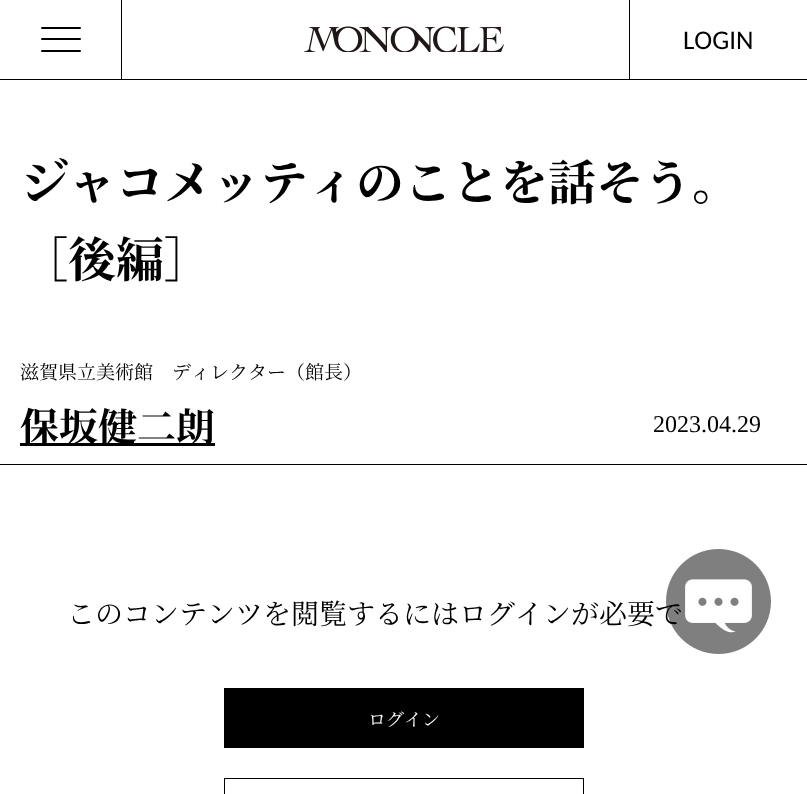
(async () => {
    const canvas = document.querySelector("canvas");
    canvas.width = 807;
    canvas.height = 794;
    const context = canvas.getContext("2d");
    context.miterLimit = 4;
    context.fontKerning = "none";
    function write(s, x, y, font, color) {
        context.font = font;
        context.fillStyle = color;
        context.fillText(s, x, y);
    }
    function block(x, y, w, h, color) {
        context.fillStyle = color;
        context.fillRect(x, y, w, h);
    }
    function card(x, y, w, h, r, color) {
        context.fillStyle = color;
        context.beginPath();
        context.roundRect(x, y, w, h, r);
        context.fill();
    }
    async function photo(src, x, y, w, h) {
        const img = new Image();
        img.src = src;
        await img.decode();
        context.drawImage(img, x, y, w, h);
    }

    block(0, 0, 807, 794, "rgb(255, 255, 255)");
    block(0, 79, 807, 1, "rgb(0, 0, 0)");
    block(121, 0, 1, 79, "rgb(0, 0, 0)");
    card(41, 27, 40, 2, 1, "rgb(0, 0, 0)");
    card(41, 38, 40, 2, 1, "rgb(0, 0, 0)");
    card(41, 50, 40, 2, 1, "rgb(0, 0, 0)");
    await photo("media/1.png", 304, 26, 200, 26);
    block(629, 0, 1, 79, "rgb(0, 0, 0)");
    write("LOGIN", 683, 49, "27px Carlito", "rgb(0, 0, 0)");
    block(0, 464, 807, 1, "rgb(0, 0, 0)");
    write("ジャコメッティのことを話そう。", 20, 200, "bold 48px Noto Serif JP", "rgb(0, 0, 0)");
    write("［後編］", 20, 277, "bold 48px Noto Serif JP", "rgb(0, 0, 0)");
    write("滋賀県立美術館　ディレクター（館長）", 20, 379, "19px Noto Serif JP", "rgb(0, 0, 0)");
    block(20, 443, 195, 3, "rgb(0, 0, 0)");
    write("保坂健二朗", 20, 441, "bold 39px Noto Serif JP", "rgb(0, 0, 0)");
    write("2023.04.29", 653, 432, "24px Liberation Serif", "rgb(0, 0, 0)");
    write("このコンテンツを閲覧するにはログインが必要で", 67, 624, "28px Noto Serif JP", "rgb(0, 0, 0)");
    block(224, 688, 360, 60, "rgb(0, 0, 0)");
    write("ログイン", 368, 726, "18px Noto Serif JP", "rgb(255, 255, 255)");
    context.strokeStyle = "rgb(0, 0, 0)";
    context.strokeRect(224.5, 778.5, 359, 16);
    await photo("media/2.png", 666, 549, 105, 105);
})();
